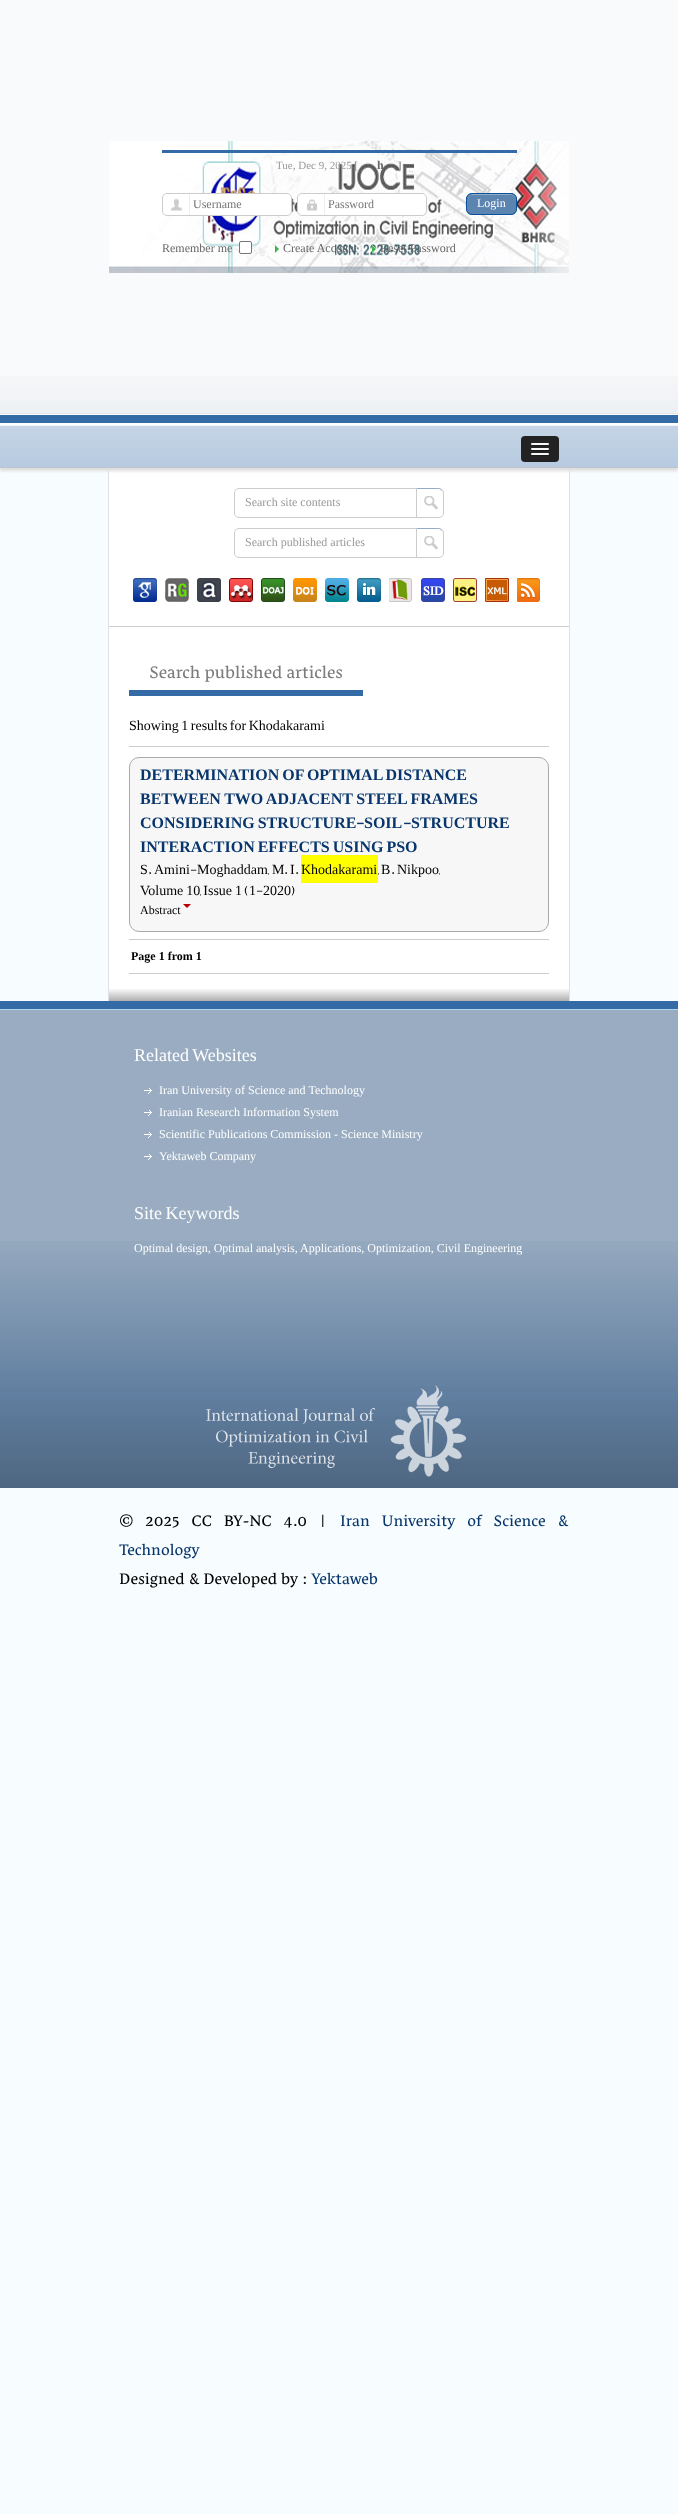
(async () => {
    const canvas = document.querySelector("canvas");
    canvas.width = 678;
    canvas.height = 2514;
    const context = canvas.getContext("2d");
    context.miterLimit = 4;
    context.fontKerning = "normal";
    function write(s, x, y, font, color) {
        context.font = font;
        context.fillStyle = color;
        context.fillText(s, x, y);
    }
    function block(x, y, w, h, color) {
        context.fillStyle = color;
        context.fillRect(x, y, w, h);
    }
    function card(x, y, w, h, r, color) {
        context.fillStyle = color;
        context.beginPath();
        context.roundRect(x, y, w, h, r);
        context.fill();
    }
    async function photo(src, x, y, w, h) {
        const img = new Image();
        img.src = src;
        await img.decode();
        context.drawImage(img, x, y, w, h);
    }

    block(0, 0, 678, 2514, "rgb(247, 252, 254)");
    block(0, 0, 678, 376, "rgb(249, 250, 251)");
    await photo("media/1.png", 0, 376, 678, 37);
    block(0, 413, 678, 1, "rgb(229, 229, 229)");
    await photo("media/2.png", 109, 141, 460, 132);
    block(162, 150, 355, 3, "rgb(52, 106, 165)");
    write("Tue, Dec 9, 2025", 276, 169, "11px Liberation Serif", "rgb(153, 153, 153)");
    write("[", 354, 169, "bold 11px Liberation Serif", "rgb(153, 153, 153)");
    write("h", 377, 169, "bold 12px Liberation Serif", "rgb(102, 102, 102)");
    write("]", 398, 169, "bold 11px Liberation Serif", "rgb(153, 153, 153)");
    card(162, 193, 130, 23, 5, "rgb(255, 255, 255)");
    await photo("media/3.png", 171, 194, 19, 21);
    context.beginPath();
    context.roundRect(162.5, 193.5, 129, 22, 4.5);
    context.strokeStyle = "rgb(204, 204, 204)";
    context.stroke();
    write("Username", 193, 208, "12px Liberation Serif", "rgb(117, 117, 117)");
    card(297, 193, 130, 23, 5, "rgb(255, 255, 255)");
    await photo("media/4.png", 307, 194, 18, 21);
    context.beginPath();
    context.roundRect(297.5, 193.5, 129, 22, 4.5);
    context.stroke();
    write("Password", 328, 208, "12px Liberation Serif", "rgb(117, 117, 117)");
    card(466, 193, 51, 22, 6, "rgb(92, 132, 176)");
    context.fillStyle = "rgb(148, 173, 199)";
    context.beginPath();
    context.moveTo(472, 195);
    context.lineTo(511, 195);
    context.bezierCurveTo(514, 195, 516, 197, 516, 200);
    context.bezierCurveTo(516, 193, 510, 194, 504, 194);
    context.lineTo(478, 194);
    context.bezierCurveTo(473, 194, 467, 193, 467, 200);
    context.bezierCurveTo(467, 197, 469, 195, 472, 195);
    context.closePath();
    context.fill();
    context.beginPath();
    context.roundRect(466.5, 193.5, 50, 21, 5.5);
    context.strokeStyle = "rgb(8, 80, 158)";
    context.stroke();
    write("Login", 477, 207, "12px Liberation Serif", "rgb(255, 255, 255)");
    write("Remember me", 162, 252, "12px Liberation Serif", "rgb(102, 102, 102)");
    context.fillStyle = "rgb(255, 255, 255)";
    context.beginPath();
    context.roundRect(239.5, 241.5, 12, 12, 1.5);
    context.fill();
    context.strokeStyle = "rgb(118, 118, 118)";
    context.stroke();
    await photo("media/5.png", 275, 245, 4, 8);
    write("Create Account", 283, 252, "12px Liberation Serif", "rgb(102, 102, 102)");
    await photo("media/6.png", 372, 245, 4, 8);
    write("Reset Password", 380, 252, "12px Liberation Serif", "rgb(102, 102, 102)");
    block(0, 415, 678, 8, "rgb(52, 106, 165)");
    block(0, 414, 678, 1, "rgb(255, 255, 255)");
    block(0, 423, 678, 2, "rgb(255, 255, 255)");
    block(109, 468, 460, 533, "rgb(255, 255, 255)");
    block(569, 468, 1, 533, "rgb(222, 226, 228)");
    block(108, 468, 1, 533, "rgb(222, 226, 228)");
    context.fillStyle = "rgb(221, 221, 221)";
    context.filter = "blur(1.5px)";
    context.beginPath();
    context.rect(0, 428, 678, 43);
    context.fill();
    context.filter = "none";
    await photo("media/7.png", 0, 426, 678, 41);
    block(0, 425, 678, 1, "rgb(237, 244, 250)");
    block(0, 467, 678, 1, "rgb(190, 196, 201)");
    card(521, 436, 38, 26, 4, "rgb(34, 34, 34)");
    context.fillStyle = "rgb(26, 26, 26)";
    context.beginPath();
    context.moveTo(531, 444.5);
    context.bezierCurveTo(530, 446.5, 534.5, 446, 534.5, 446);
    context.lineTo(545.5, 446);
    context.bezierCurveTo(545.5, 446, 550, 446.5, 549, 444.5);
    context.bezierCurveTo(548, 445.5, 541.5, 445, 540, 445);
    context.bezierCurveTo(538.5, 445, 532, 445.5, 531, 444.5);
    context.closePath();
    context.fill();
    card(531, 443, 18, 2, 1, "rgb(245, 245, 245)");
    context.fillStyle = "rgb(26, 26, 26)";
    context.beginPath();
    context.moveTo(531, 449.5);
    context.bezierCurveTo(530, 451.5, 534.5, 451, 534.5, 451);
    context.lineTo(545.5, 451);
    context.bezierCurveTo(545.5, 451, 550, 451.5, 549, 449.5);
    context.bezierCurveTo(548, 450.5, 541.5, 450, 540, 450);
    context.bezierCurveTo(538.5, 450, 532, 450.5, 531, 449.5);
    context.closePath();
    context.fill();
    card(531, 448, 18, 2, 1, "rgb(245, 245, 245)");
    context.fillStyle = "rgb(26, 26, 26)";
    context.beginPath();
    context.moveTo(531, 454.5);
    context.bezierCurveTo(530, 456.5, 534.5, 456, 534.5, 456);
    context.lineTo(545.5, 456);
    context.bezierCurveTo(545.5, 456, 550, 456.5, 549, 454.5);
    context.bezierCurveTo(548, 455.5, 541.5, 455, 540, 455);
    context.bezierCurveTo(538.5, 455, 532, 455.5, 531, 454.5);
    context.closePath();
    context.fill();
    card(531, 453, 18, 2, 1, "rgb(245, 245, 245)");
    await photo("media/8.png", 109, 989, 460, 12);
    block(109, 626, 460, 1, "rgb(204, 204, 204)");
    context.beginPath();
    context.roundRect(234.5, 488.5, 209, 29, 4.5);
    context.strokeStyle = "rgb(204, 204, 204)";
    context.stroke();
    write("Search site contents", 245, 506, "12px Liberation Serif", "rgb(153, 153, 153)");
    await photo("media/9.png", 424, 496, 14, 14);
    context.fillStyle = "rgb(148, 173, 199)";
    context.beginPath();
    context.moveTo(417, 489);
    context.lineTo(438, 489);
    context.bezierCurveTo(441, 489, 443, 491, 443, 494);
    context.bezierCurveTo(443, 486.5, 436.5, 488, 431, 488);
    context.lineTo(417, 488);
    context.closePath();
    context.fill();
    block(416, 488, 1, 29, "rgb(204, 204, 204)");
    context.beginPath();
    context.roundRect(234.5, 528.5, 209, 29, 4.5);
    context.stroke();
    write("Search published articles", 245, 546, "12px Liberation Serif", "rgb(153, 153, 153)");
    await photo("media/9.png", 424, 536, 14, 14);
    context.fillStyle = "rgb(148, 173, 199)";
    context.beginPath();
    context.moveTo(417, 529);
    context.lineTo(438, 529);
    context.bezierCurveTo(441, 529, 443, 531, 443, 534);
    context.bezierCurveTo(443, 526.5, 436.5, 528, 431, 528);
    context.lineTo(417, 528);
    context.closePath();
    context.fill();
    block(416, 528, 1, 29, "rgb(204, 204, 204)");
    await photo("media/10.png", 133, 578, 24, 24);
    await photo("media/11.png", 165, 578, 24, 24);
    await photo("media/12.png", 197, 578, 24, 24);
    await photo("media/13.png", 229, 578, 24, 24);
    await photo("media/14.png", 261, 578, 24, 24);
    await photo("media/15.png", 293, 578, 24, 24);
    await photo("media/16.png", 325, 578, 24, 24);
    await photo("media/17.png", 357, 578, 24, 24);
    await photo("media/18.png", 389, 578, 23, 24);
    await photo("media/19.png", 421, 578, 24, 24);
    await photo("media/20.png", 453, 578, 24, 24);
    await photo("media/21.png", 485, 578, 24, 24);
    await photo("media/22.png", 517, 578, 23, 24);
    await photo("media/23.png", 109, 989, 460, 12);
    block(129, 690, 234, 6, "rgb(52, 106, 165)");
    write("Search published articles", 149, 678, "22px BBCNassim", "rgb(124, 124, 124)");
    context.wordSpacing = "-1px";
    write("Showing 1 results for Khodakarami", 129, 730, "14px Liberation Serif", "rgb(0, 0, 0)");
    block(129, 746, 420, 1, "rgb(204, 204, 204)");
    context.fillStyle = "rgb(247, 247, 247)";
    context.beginPath();
    context.roundRect(129.5, 757.5, 419, 174, 9.5);
    context.fill();
    context.strokeStyle = "rgb(170, 170, 170)";
    context.stroke();
    write("DETERMINATION OF OPTIMAL DISTANCE", 140, 780, "bold 16px Liberation Serif", "rgb(8, 54, 108)");
    context.wordSpacing = "-0.5px";
    write("BETWEEN TWO ADJACENT STEEL FRAMES", 140, 804, "bold 16px Liberation Serif", "rgb(8, 54, 108)");
    context.wordSpacing = "-1px";
    write("CONSIDERING STRUCTURE", 140, 828, "bold 16px Liberation Serif", "rgb(8, 54, 108)");
    context.wordSpacing = "0px";
    write("-", 356, 828, "bold 16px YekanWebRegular", "rgb(8, 54, 108)");
    write("SOIL", 364, 828, "bold 16px Liberation Serif", "rgb(8, 54, 108)");
    write("-", 403, 828, "bold 16px YekanWebRegular", "rgb(8, 54, 108)");
    write("STRUCTURE", 411, 828, "bold 16px Liberation Serif", "rgb(8, 54, 108)");
    context.wordSpacing = "-1px";
    write("INTERACTION EFFECTS USING PSO", 140, 852, "bold 16px Liberation Serif", "rgb(8, 54, 108)");
    context.wordSpacing = "0px";
    write("S", 140, 874, "14px Liberation Serif", "rgb(0, 0, 0)");
    write("Amini", 154, 874, "14px Liberation Serif", "rgb(0, 0, 0)");
    write("-", 190, 874, "14px YekanWebRegular", "rgb(0, 0, 0)");
    write("Moghaddam", 197, 874, "14px Liberation Serif", "rgb(0, 0, 0)");
    write("M", 272, 874, "14px Liberation Serif", "rgb(0, 0, 0)");
    write("I", 290, 874, "14px Liberation Serif", "rgb(0, 0, 0)");
    block(301, 855, 77, 28, "rgb(255, 255, 0)");
    write("Khodakarami", 301, 874, "14px Liberation Serif", "rgb(0, 0, 0)");
    write("B", 381, 874, "14px Liberation Serif", "rgb(0, 0, 0)");
    write("Nikpoo", 397, 874, "14px Liberation Serif", "rgb(0, 0, 0)");
    write(".", 148, 874, "14px YekanWebRegular", "rgb(0, 0, 0)");
    write(",", 268, 874, "14px YekanWebRegular", "rgb(0, 0, 0)");
    write(".", 284, 874, "14px YekanWebRegular", "rgb(0, 0, 0)");
    write(".", 295, 874, "14px YekanWebRegular", "rgb(0, 0, 0)");
    write(",", 378, 874, "14px YekanWebRegular", "rgb(0, 0, 0)");
    write(".", 391, 874, "14px YekanWebRegular", "rgb(0, 0, 0)");
    write(",", 439, 874, "14px YekanWebRegular", "rgb(0, 0, 0)");
    context.wordSpacing = "-0.5px";
    write("Volume 10 Issue 1", 140, 895, "14px Liberation Serif", "rgb(0, 0, 0)");
    context.wordSpacing = "0px";
    write("(", 244, 895, "14px YekanWebRegular", "rgb(0, 0, 0)");
    write("1", 249, 895, "14px Liberation Serif", "rgb(0, 0, 0)");
    write("-", 256, 895, "14px YekanWebRegular", "rgb(0, 0, 0)");
    write("2020", 263, 895, "14px Liberation Serif", "rgb(0, 0, 0)");
    write(")", 291, 895, "14px YekanWebRegular", "rgb(0, 0, 0)");
    write(",", 200, 895, "14px YekanWebRegular", "rgb(0, 0, 0)");
    write("Abstract", 140, 914, "12px Liberation Serif", "rgb(0, 0, 0)");
    context.fillStyle = "rgb(182, 0, 0)";
    context.beginPath();
    context.moveTo(183, 904);
    context.lineTo(191, 904);
    context.lineTo(187, 908);
    context.closePath();
    context.fill();
    block(129, 939, 420, 1, "rgb(204, 204, 204)");
    write("Page 1 from 1", 131, 960, "bold 12px Liberation Serif", "rgb(0, 0, 0)");
    block(129, 973, 420, 1, "rgb(204, 204, 204)");
    block(0, 1010, 678, 231, "rgb(153, 172, 193)");
    await photo("media/24.png", 0, 1241, 678, 247);
    block(0, 1001, 678, 8, "rgb(52, 106, 165)");
    block(0, 1009, 678, 1, "rgb(171, 215, 233)");
    context.wordSpacing = "-1px";
    write("Related Websites", 134, 1061, "18px Liberation Serif", "rgb(255, 255, 255)");
    await photo("media/25.png", 144, 1088, 8, 6);
    context.wordSpacing = "0px";
    write("Iran University of Science and Technology", 159, 1094, "12px Liberation Serif", "rgb(255, 255, 255)");
    await photo("media/25.png", 144, 1110, 8, 6);
    write("Iranian Research Information System", 159, 1116, "12px Liberation Serif", "rgb(255, 255, 255)");
    await photo("media/25.png", 144, 1132, 8, 6);
    write("Scientific Publications Commission - Science Ministry", 159, 1138, "12px Liberation Serif", "rgb(255, 255, 255)");
    await photo("media/25.png", 144, 1154, 8, 6);
    write("Yektaweb Company", 159, 1160, "12px Liberation Serif", "rgb(255, 255, 255)");
    context.wordSpacing = "-1px";
    write("Site Keywords", 134, 1219, "18px Liberation Serif", "rgb(255, 255, 255)");
    context.wordSpacing = "0px";
    write("Optimal design, Optimal analysis, Applications, Optimization, Civil Engineering", 134, 1252, "12px Liberation Serif", "rgb(255, 255, 255)");
    await photo("media/26.png", 206, 1385, 261, 92);
    context.wordSpacing = "8px";
    write("© 2025 CC BY-NC 4.0 |", 119, 1526, "20px BBCNassim", "rgb(0, 0, 0)");
    write("Iran University of Science &", 340, 1526, "20px BBCNassim", "rgb(8, 54, 108)");
    context.wordSpacing = "0px";
    write("Technology", 119, 1555, "20px BBCNassim", "rgb(8, 54, 108)");
    write("Designed & Developed by :", 119, 1584, "20px BBCNassim", "rgb(0, 0, 0)");
    write("Yektaweb", 311, 1584, "20px BBCNassim", "rgb(8, 54, 108)");
})();
